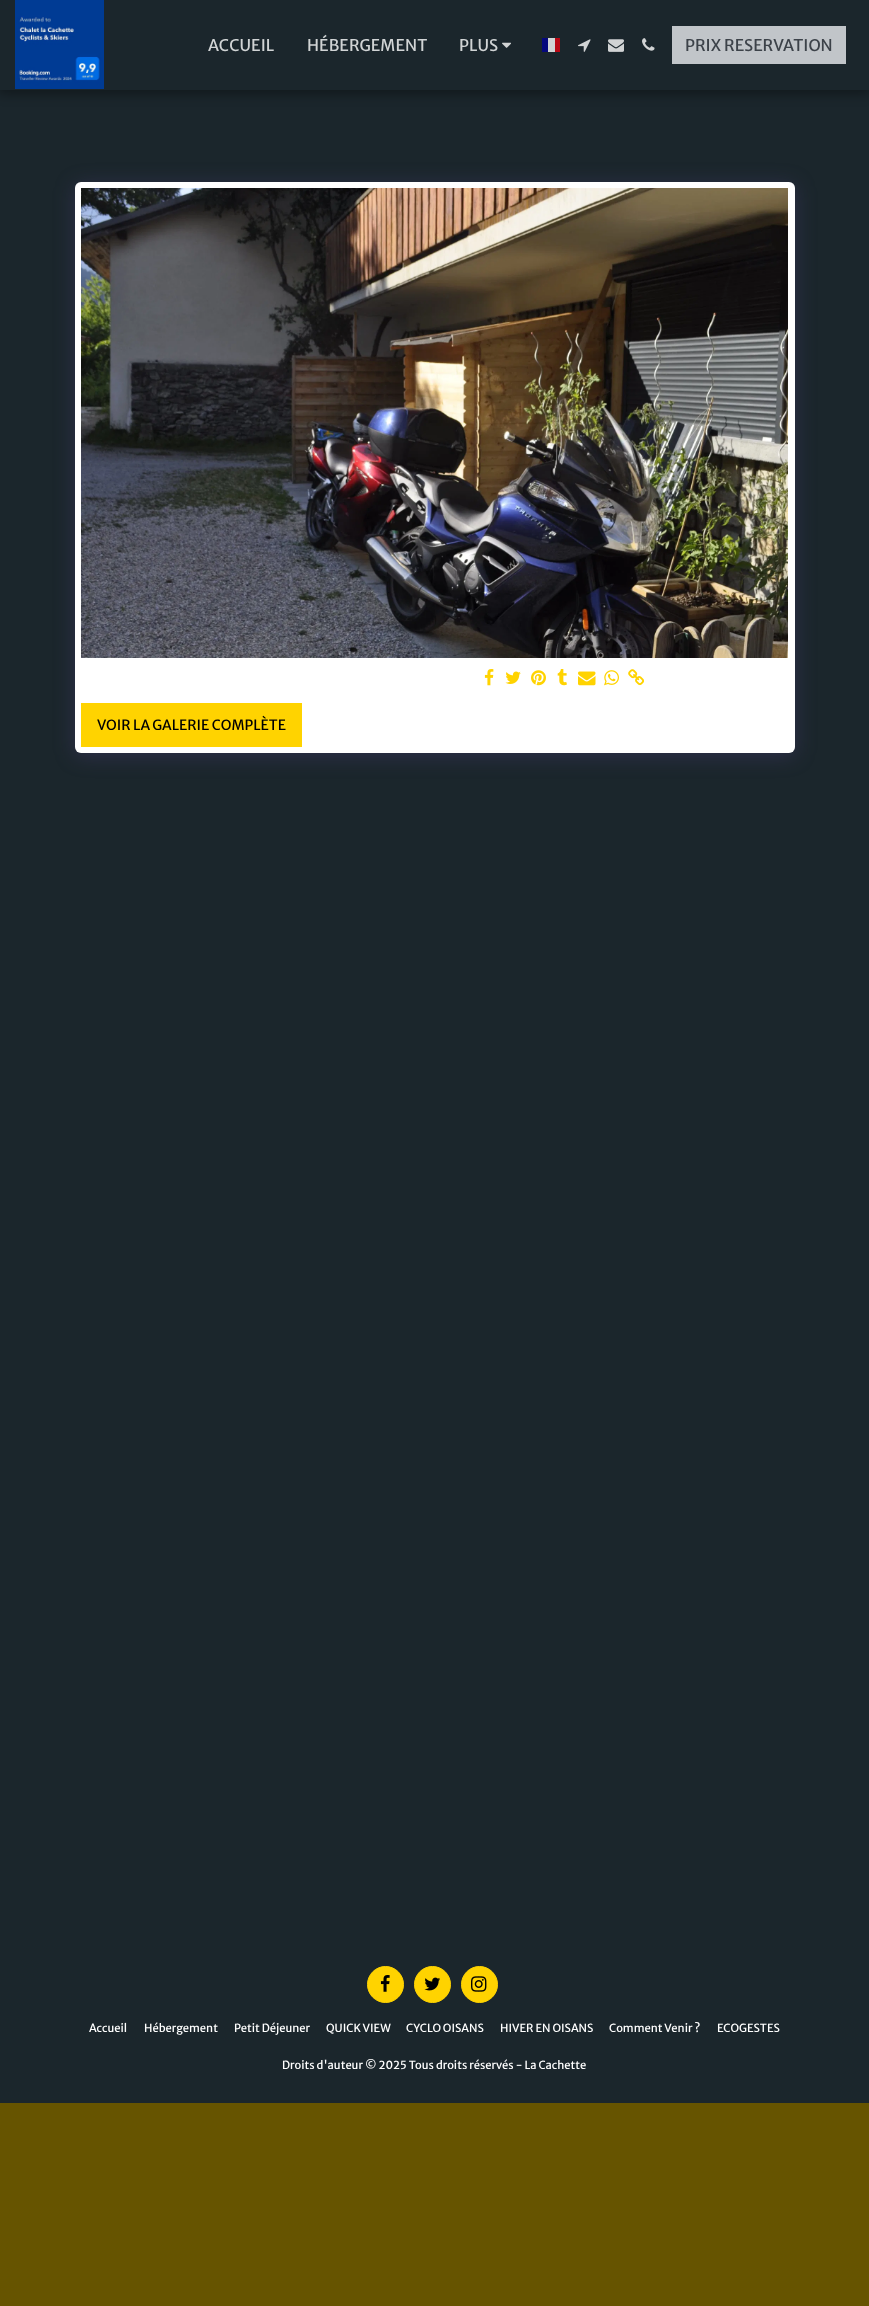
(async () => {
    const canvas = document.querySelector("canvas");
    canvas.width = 869;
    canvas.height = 2306;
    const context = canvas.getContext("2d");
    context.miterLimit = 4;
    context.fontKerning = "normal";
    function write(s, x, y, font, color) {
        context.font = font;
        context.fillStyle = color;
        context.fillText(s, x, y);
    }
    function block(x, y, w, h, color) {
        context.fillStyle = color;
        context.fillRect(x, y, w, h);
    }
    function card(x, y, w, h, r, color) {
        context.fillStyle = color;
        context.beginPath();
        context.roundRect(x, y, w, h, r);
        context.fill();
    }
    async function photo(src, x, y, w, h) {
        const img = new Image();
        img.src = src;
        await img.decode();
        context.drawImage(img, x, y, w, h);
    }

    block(0, 0, 869, 2306, "rgb(102, 84, 0)");
    block(0, 90, 869, 2013, "rgb(27, 38, 44)");
    context.fillStyle = "rgba(0, 0, 0, 0.35)";
    context.filter = "blur(6px)";
    context.beginPath();
    context.rect(-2, 0, 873, 94);
    context.fill();
    context.filter = "none";
    block(0, 0, 869, 90, "rgb(27, 38, 44)");
    await photo("media/1.png", 15, 0, 89, 89);
    context.letterSpacing = "0.1px";
    write("ACCUEIL", 208, 51, "16px Merriweather Sans", "rgb(209, 212, 213)");
    write("HÉBERGEMENT", 307, 51, "16px Merriweather Sans", "rgb(209, 212, 213)");
    write("PLUS", 459, 51, "16px Merriweather Sans", "rgb(209, 212, 213)");
    await photo("media/2.png", 502, 42, 9, 6);
    block(548, 38, 7, 14, "rgb(209, 212, 213)");
    block(542, 38, 6, 14, "rgb(5, 8, 125)");
    block(555, 38, 5, 14, "rgb(185, 8, 21)");
    await photo("media/3.png", 578, 39, 13, 13);
    await photo("media/4.png", 608, 39, 16, 13);
    await photo("media/5.png", 642, 38, 13, 13);
    block(672, 26, 174, 38, "rgb(193, 197, 201)");
    context.letterSpacing = "0px";
    write("PRIX RESERVATION", 685, 51, "16px Merriweather Sans", "rgb(60, 66, 73)");
    context.fillStyle = "rgba(77, 63, 122, 0.4)";
    context.filter = "blur(10px)";
    context.beginPath();
    context.roundRect(75, 185, 720, 571, 6);
    context.fill();
    context.filter = "none";
    card(75, 182, 720, 571, 6, "rgb(255, 255, 255)");
    await photo("media/6.png", 81, 188, 707, 470);
    await photo("media/7.png", 484, 669, 10, 17);
    await photo("media/8.png", 505, 671, 16, 13);
    await photo("media/9.png", 531, 670, 15, 16);
    await photo("media/10.png", 557, 669, 10, 17);
    await photo("media/11.png", 578, 671, 18, 15);
    await photo("media/12.png", 604, 670, 15, 16);
    await photo("media/13.png", 628, 669, 16, 17);
    block(81, 703, 221, 44, "rgb(255, 211, 0)");
    write("VOIR LA GALERIE COMPLÈTE", 97, 730, "14px Merriweather Sans", "rgb(0, 0, 0)");
    context.fillStyle = "rgb(255, 211, 0)";
    context.beginPath();
    context.arc(385.5, 1984.5, 18, 0, Math.PI * 2);
    context.fill();
    context.strokeStyle = "rgb(255, 211, 0)";
    context.stroke();
    await photo("media/14.png", 380, 1975, 10, 17);
    context.beginPath();
    context.arc(432.5, 1984.5, 18, 0, Math.PI * 2);
    context.fill();
    context.stroke();
    await photo("media/15.png", 424, 1977, 16, 14);
    context.beginPath();
    context.arc(479.5, 1984.5, 18, 0, Math.PI * 2);
    context.fill();
    context.stroke();
    await photo("media/16.png", 471, 1976, 16, 16);
    write("Accueil", 89, 2032, "11.2px Merriweather Sans", "rgb(255, 255, 255)");
    write("Hébergement", 144, 2032, "11.2px Merriweather Sans", "rgb(255, 255, 255)");
    write("Petit Déjeuner", 234, 2032, "11.2px Merriweather Sans", "rgb(255, 255, 255)");
    write("QUICK VIEW", 326, 2032, "11.2px Merriweather Sans", "rgb(255, 255, 255)");
    write("CYCLO OISANS", 406, 2032, "11.2px Merriweather Sans", "rgb(255, 255, 255)");
    write("HIVER EN OISANS", 500, 2032, "11.2px Merriweather Sans", "rgb(255, 255, 255)");
    write("Comment Venir ?", 609, 2032, "11.2px Merriweather Sans", "rgb(255, 255, 255)");
    write("ECOGESTES", 717, 2032, "11.2px Merriweather Sans", "rgb(255, 255, 255)");
    write("Droits d'auteur © 2025 Tous droits réservés - La Cachette", 282, 2069, "11.2px Merriweather Sans", "rgb(255, 255, 255)");
})();
